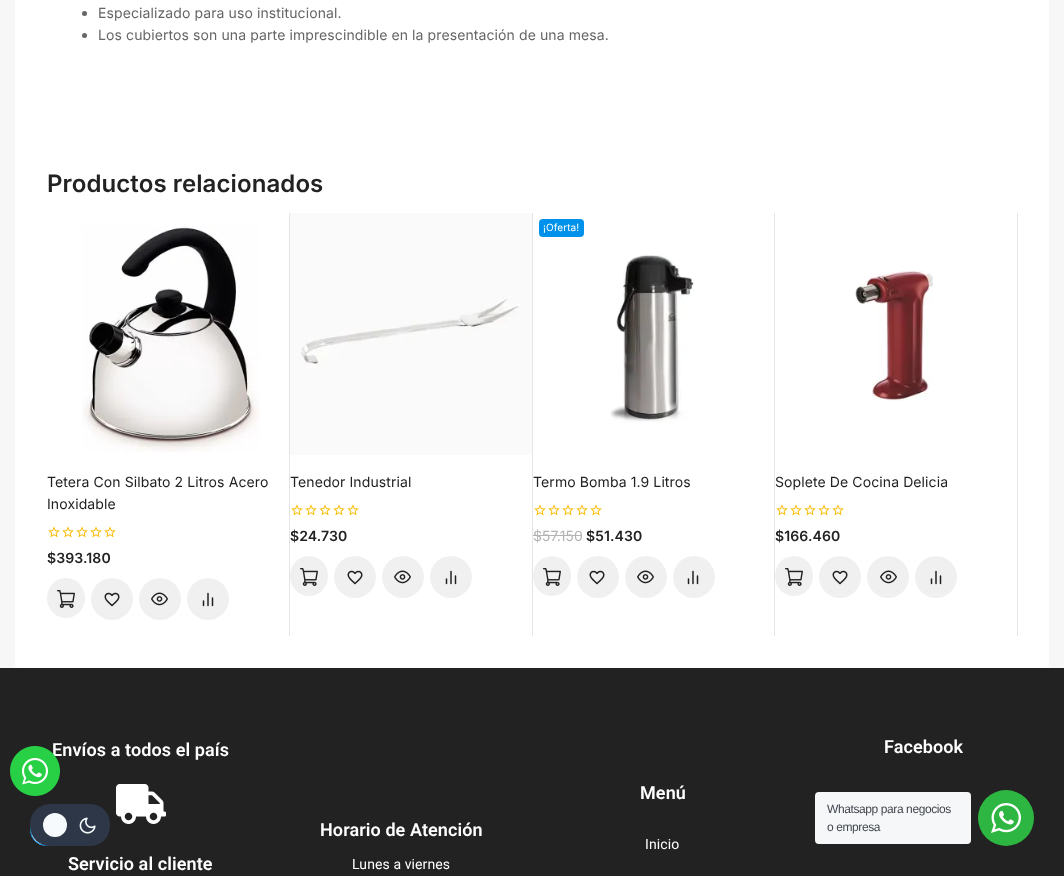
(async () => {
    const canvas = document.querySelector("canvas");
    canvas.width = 1064;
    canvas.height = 876;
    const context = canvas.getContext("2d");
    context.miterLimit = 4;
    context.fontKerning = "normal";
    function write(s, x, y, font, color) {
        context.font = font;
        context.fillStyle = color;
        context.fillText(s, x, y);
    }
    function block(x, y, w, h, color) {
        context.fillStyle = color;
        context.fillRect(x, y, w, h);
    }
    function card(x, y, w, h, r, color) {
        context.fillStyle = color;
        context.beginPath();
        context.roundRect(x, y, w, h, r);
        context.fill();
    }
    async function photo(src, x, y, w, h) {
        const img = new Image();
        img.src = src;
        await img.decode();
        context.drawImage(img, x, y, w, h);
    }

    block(0, 0, 1064, 876, "rgb(247, 247, 247)");
    block(0, 668, 1064, 208, "rgb(34, 34, 34)");
    context.letterSpacing = "0.1px";
    write("Envíos a todos el país", 52, 756, "600 18px Roboto", "rgb(255, 255, 255)");
    await photo("media/1.png", 10, 746, 50, 50);
    card(15, -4, 1034, 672, 4, "rgb(255, 255, 255)");
    context.fillStyle = "rgb(102, 102, 102)";
    context.beginPath();
    context.arc(84.5, 13.5, 2.5, 0, Math.PI * 2);
    context.fill();
    write("Especializado para uso institucional.", 98, 18, "14px Inter", "rgb(102, 102, 102)");
    context.beginPath();
    context.arc(84.5, 35.5, 2.5, 0, Math.PI * 2);
    context.fill();
    write("Los cubiertos son una parte imprescindible en la presentación de una mesa.", 98, 40, "14px Inter", "rgb(102, 102, 102)");
    write("Productos relacionados", 47, 192, "600 24px Inter", "rgb(34, 34, 34)");
    block(289, 213, 1, 423, "rgb(229, 229, 229)");
    await photo("media/2.png", 82, 226, 178, 226);
    write("Tetera Con Silbato 2 Litros Acero", 47, 487, "14px Inter", "rgb(34, 34, 34)");
    write("Inoxidable", 47, 509, "14px Inter", "rgb(34, 34, 34)");
    await photo("media/3.png", 48, 526, 68, 12);
    write("$393.180", 47, 563, "600 14px Inter", "rgb(34, 34, 34)");
    context.fillStyle = "rgb(240, 240, 240)";
    context.beginPath();
    context.ellipse(66, 598, 19, 20, 0, 0, Math.PI * 2);
    context.fill();
    await photo("media/4.png", 57, 590, 18, 18);
    context.beginPath();
    context.arc(112, 599, 21, 0, Math.PI * 2);
    context.fill();
    await photo("media/5.png", 104, 592, 16, 15);
    context.beginPath();
    context.arc(160, 599, 21, 0, Math.PI * 2);
    context.fill();
    await photo("media/6.png", 151, 592, 17, 14);
    context.beginPath();
    context.arc(208, 599, 21, 0, Math.PI * 2);
    context.fill();
    await photo("media/7.png", 202, 592, 12, 15);
    block(532, 213, 1, 423, "rgb(229, 229, 229)");
    await photo("media/8.png", 290, 213, 242, 242);
    write("Tenedor Industrial", 290, 487, "14px Inter", "rgb(34, 34, 34)");
    await photo("media/3.png", 291, 504, 68, 12);
    write("$24.730", 290, 541, "600 14px Inter", "rgb(34, 34, 34)");
    context.fillStyle = "rgb(240, 240, 240)";
    context.beginPath();
    context.ellipse(309, 576, 19, 20, 0, 0, Math.PI * 2);
    context.fill();
    await photo("media/4.png", 300, 568, 18, 18);
    context.beginPath();
    context.arc(355, 577, 21, 0, Math.PI * 2);
    context.fill();
    await photo("media/5.png", 347, 570, 16, 15);
    context.beginPath();
    context.arc(403, 577, 21, 0, Math.PI * 2);
    context.fill();
    await photo("media/6.png", 394, 570, 17, 14);
    context.beginPath();
    context.arc(451, 577, 21, 0, Math.PI * 2);
    context.fill();
    await photo("media/7.png", 445, 570, 12, 15);
    block(774, 213, 1, 423, "rgb(229, 229, 229)");
    card(539, 219, 45, 18, 4, "rgb(0, 145, 234)");
    write("¡Oferta!", 543, 231, "10px Inter", "rgb(255, 255, 255)");
    await photo("media/9.png", 610, 255, 84, 168);
    write("Termo Bomba 1.9 Litros", 533, 487, "14px Inter", "rgb(34, 34, 34)");
    await photo("media/3.png", 534, 504, 68, 12);
    write("$57.150", 533, 541, "14px Inter", "rgb(179, 179, 179)");
    block(533, 535, 49, 1, "rgb(179, 179, 179)");
    write("$51.430", 586, 541, "600 14px Inter", "rgb(34, 34, 34)");
    context.fillStyle = "rgb(240, 240, 240)";
    context.beginPath();
    context.ellipse(552, 576, 19, 20, 0, 0, Math.PI * 2);
    context.fill();
    await photo("media/4.png", 543, 568, 18, 18);
    context.beginPath();
    context.arc(598, 577, 21, 0, Math.PI * 2);
    context.fill();
    await photo("media/5.png", 589, 570, 16, 15);
    context.beginPath();
    context.arc(646, 577, 21, 0, Math.PI * 2);
    context.fill();
    await photo("media/6.png", 637, 570, 17, 14);
    context.beginPath();
    context.arc(694, 577, 21, 0, Math.PI * 2);
    context.fill();
    await photo("media/7.png", 687, 570, 12, 15);
    block(1017, 213, 1, 423, "rgb(229, 229, 229)");
    await photo("media/10.png", 855, 271, 78, 130);
    write("Soplete De Cocina Delicia", 775, 487, "14px Inter", "rgb(34, 34, 34)");
    await photo("media/3.png", 776, 504, 68, 12);
    write("$166.460", 775, 541, "600 14px Inter", "rgb(34, 34, 34)");
    context.fillStyle = "rgb(240, 240, 240)";
    context.beginPath();
    context.ellipse(794, 576, 19, 20, 0, 0, Math.PI * 2);
    context.fill();
    await photo("media/4.png", 785, 568, 18, 18);
    context.beginPath();
    context.arc(840, 577, 21, 0, Math.PI * 2);
    context.fill();
    await photo("media/5.png", 832, 570, 16, 15);
    context.beginPath();
    context.arc(888, 577, 21, 0, Math.PI * 2);
    context.fill();
    await photo("media/6.png", 880, 570, 17, 14);
    context.beginPath();
    context.arc(936, 577, 21, 0, Math.PI * 2);
    context.fill();
    await photo("media/7.png", 930, 570, 12, 15);
    await photo("media/11.png", 116, 784, 50, 40);
    write("Servicio al cliente", 68, 870, "600 18px Roboto", "rgb(255, 255, 255)");
    write("Horario de Atención", 320, 836, "600 18px Roboto", "rgb(255, 255, 255)");
    write("Lunes a viernes", 352, 869, "14px Roboto", "rgb(255, 255, 255)");
    write("Menú", 640, 799, "600 18px Roboto", "rgb(255, 255, 255)");
    write("Inicio", 645, 849, "14px Roboto", "rgb(255, 255, 255)");
    write("Facebook", 884, 753, "600 18px Roboto", "rgb(255, 255, 255)");
    context.beginPath();
    context.arc(46, 830, 15.5, 0, Math.PI * 2);
    context.fill();
    context.strokeStyle = "rgb(0, 145, 234)";
    context.stroke();
    card(30, 804, 80, 42, 20, "rgb(45, 55, 72)");
    context.fillStyle = "rgb(247, 250, 252)";
    context.beginPath();
    context.arc(55, 825, 12, 0, Math.PI * 2);
    context.fill();
    await photo("media/12.png", 79, 817, 17, 17);
    card(815, 792, 156, 52, 4, "rgb(245, 247, 249)");
    context.letterSpacing = "-0.4px";
    write("Whatsapp para negocios", 827, 813, "12px Liberation Sans", "rgb(67, 71, 78)");
    write("o empresa", 827, 831, "12px Liberation Sans", "rgb(67, 71, 78)");
    context.fillStyle = "rgb(45, 183, 66)";
    context.beginPath();
    context.arc(1006, 818, 28, 0, Math.PI * 2);
    context.fill();
    await photo("media/13.png", 991, 803, 30, 30);
})();
